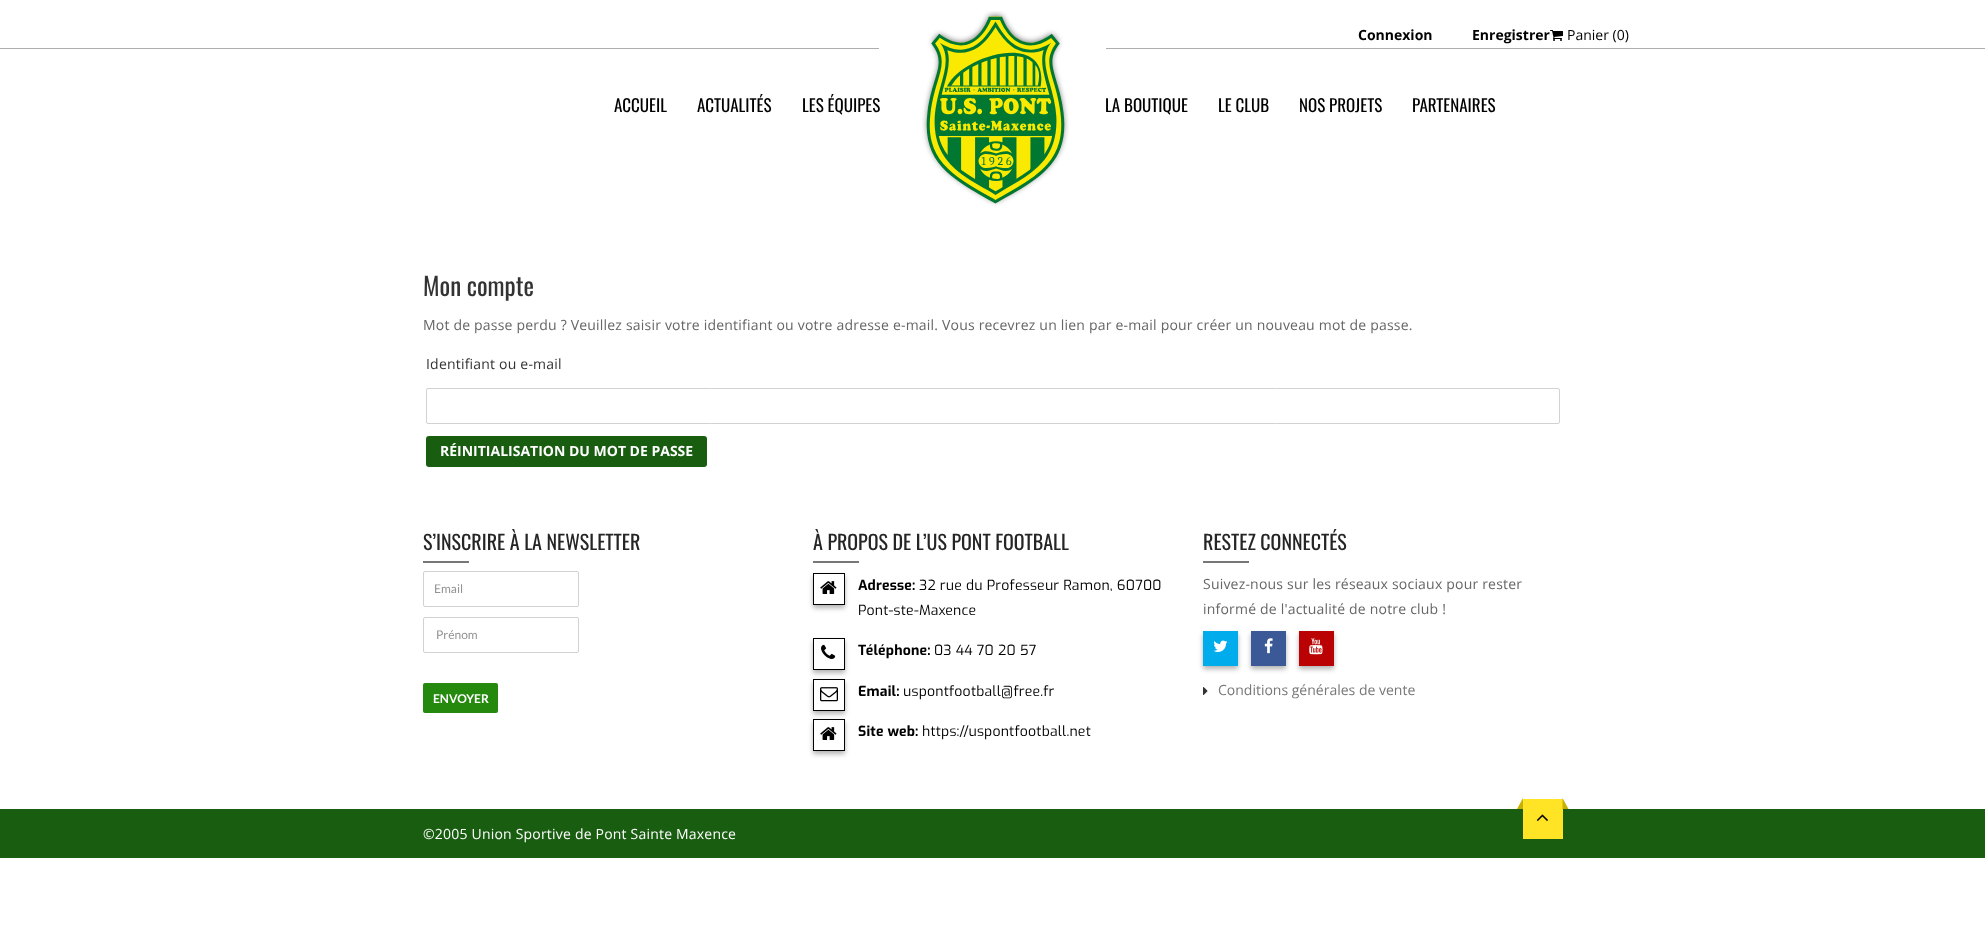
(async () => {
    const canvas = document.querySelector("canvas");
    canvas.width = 1985;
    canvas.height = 944;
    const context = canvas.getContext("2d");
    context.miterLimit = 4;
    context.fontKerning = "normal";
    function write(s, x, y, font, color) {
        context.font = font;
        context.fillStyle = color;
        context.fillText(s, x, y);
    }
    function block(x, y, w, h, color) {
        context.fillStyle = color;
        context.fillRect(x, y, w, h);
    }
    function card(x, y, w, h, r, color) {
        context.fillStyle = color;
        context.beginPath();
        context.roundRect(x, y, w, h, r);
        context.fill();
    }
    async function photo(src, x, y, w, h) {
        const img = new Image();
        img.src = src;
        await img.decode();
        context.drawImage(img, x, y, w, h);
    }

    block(0, 0, 1985, 944, "rgb(255, 255, 255)");
    write("Connexion", 1358, 40, "bold 14px Open Sans", "rgb(0, 0, 0)");
    write("Enregistrer", 1472, 40, "bold 14px Open Sans", "rgb(0, 0, 0)");
    await photo("media/1.png", 1550, 30, 13, 11);
    write("Panier (0)", 1567, 40, "14px Open Sans", "rgb(0, 0, 0)");
    block(0, 48, 879, 1, "rgb(173, 173, 173)");
    block(1106, 48, 879, 1, "rgb(173, 173, 173)");
    write("ACCUEIL", 614, 112, "17px Oswald", "rgb(0, 0, 0)");
    write("ACTUALITÉS", 697, 112, "17px Oswald", "rgb(0, 0, 0)");
    write("LES ÉQUIPES", 802, 112, "17px Oswald", "rgb(0, 0, 0)");
    await photo("media/2.png", 922, 11, 147, 195);
    write("LA BOUTIQUE", 1105, 112, "17px Oswald", "rgb(0, 0, 0)");
    write("LE CLUB", 1218, 112, "17px Oswald", "rgb(0, 0, 0)");
    write("NOS PROJETS", 1299, 112, "17px Oswald", "rgb(0, 0, 0)");
    write("PARTENAIRES", 1412, 112, "17px Oswald", "rgb(0, 0, 0)");
    write("Mon compte", 423, 296, "25px Oswald", "rgb(51, 51, 51)");
    context.letterSpacing = "0.2px";
    write("Mot de passe perdu ? Veuillez saisir votre identifiant ou votre adresse e-mail. Vous recevrez un lien par e-mail pour créer un nouveau mot de passe.", 423, 330, "14px Open Sans", "rgb(102, 102, 102)");
    write("Identifiant ou e-mail", 426, 369, "14px Open Sans", "rgb(51, 51, 51)");
    context.beginPath();
    context.roundRect(426.5, 388.5, 1133, 35, 1.5);
    context.strokeStyle = "rgb(210, 210, 210)";
    context.stroke();
    card(426, 436, 281, 31, 3, "rgb(25, 93, 16)");
    context.letterSpacing = "0px";
    write("RÉINITIALISATION DU MOT DE PASSE", 440, 456, "bold 14px Open Sans", "rgb(255, 255, 255)");
    write("S’INSCRIRE À LA NEWSLETTER", 423, 550, "20px Oswald", "rgb(37, 37, 37)");
    block(423, 561, 46, 2, "rgb(119, 119, 119)");
    context.beginPath();
    context.roundRect(423.5, 571.5, 155, 35, 1.5);
    context.stroke();
    write("Email", 434, 593, "12px Lato", "rgb(147, 147, 147)");
    context.beginPath();
    context.roundRect(423.5, 617.5, 155, 35, 1.5);
    context.stroke();
    write("Prénom", 436, 639, "12px Lato", "rgb(147, 147, 147)");
    card(423, 683, 75, 30, 2, "rgb(36, 137, 13)");
    write("ENVOYER", 433, 703, "bold 12px Lato", "rgb(255, 255, 255)");
    write("À PROPOS DE L’US PONT FOOTBALL", 813, 550, "20px Oswald", "rgb(37, 37, 37)");
    block(813, 561, 46, 2, "rgb(119, 119, 119)");
    context.save();
    context.beginPath();
    context.moveTo(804, 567);
    context.lineTo(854, 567);
    context.lineTo(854, 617);
    context.lineTo(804, 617);
    context.closePath();
    context.moveTo(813, 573);
    context.lineTo(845, 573);
    context.lineTo(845, 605);
    context.lineTo(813, 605);
    context.closePath();
    context.clip("evenodd");
    context.fillStyle = "rgba(0, 0, 0, 0.3)";
    context.filter = "blur(2.5px)";
    context.beginPath();
    context.rect(813, 576, 32, 32);
    context.fill();
    context.filter = "none";
    context.restore();
    context.strokeStyle = "rgb(0, 0, 0)";
    context.strokeRect(813.5, 573.5, 31, 31);
    await photo("media/3.png", 820, 581, 17, 13);
    context.letterSpacing = "0.2px";
    write("Adresse:", 858, 590, "bold 14px Exo", "rgb(0, 0, 0)");
    write("32 rue du Professeur Ramon, 60700", 919, 590, "14px Exo", "rgb(0, 0, 0)");
    write("Pont-ste-Maxence", 858, 615, "14px Exo", "rgb(0, 0, 0)");
    context.save();
    context.beginPath();
    context.moveTo(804, 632);
    context.lineTo(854, 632);
    context.lineTo(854, 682);
    context.lineTo(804, 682);
    context.closePath();
    context.moveTo(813, 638);
    context.lineTo(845, 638);
    context.lineTo(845, 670);
    context.lineTo(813, 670);
    context.closePath();
    context.clip("evenodd");
    context.fillStyle = "rgba(0, 0, 0, 0.3)";
    context.filter = "blur(2.5px)";
    context.beginPath();
    context.rect(813, 641, 32, 32);
    context.fill();
    context.filter = "none";
    context.restore();
    context.strokeRect(813.5, 638.5, 31, 31);
    await photo("media/4.png", 821, 644, 15, 15);
    write("Téléphone:", 858, 655, "bold 14px Exo", "rgb(0, 0, 0)");
    write("03 44 70 20 57", 934, 655, "14px Exo", "rgb(0, 0, 0)");
    context.save();
    context.beginPath();
    context.moveTo(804, 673);
    context.lineTo(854, 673);
    context.lineTo(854, 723);
    context.lineTo(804, 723);
    context.closePath();
    context.moveTo(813, 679);
    context.lineTo(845, 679);
    context.lineTo(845, 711);
    context.lineTo(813, 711);
    context.closePath();
    context.clip("evenodd");
    context.fillStyle = "rgba(0, 0, 0, 0.3)";
    context.filter = "blur(2.5px)";
    context.beginPath();
    context.rect(813, 682, 32, 32);
    context.fill();
    context.filter = "none";
    context.restore();
    context.strokeRect(813.5, 679.5, 31, 31);
    await photo("media/5.png", 820, 687, 18, 15);
    write("Email:", 858, 696, "bold 14px Exo", "rgb(0, 0, 0)");
    write("uspontfootball@free.fr", 903, 696, "14px Exo", "rgb(0, 0, 0)");
    context.save();
    context.beginPath();
    context.moveTo(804, 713);
    context.lineTo(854, 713);
    context.lineTo(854, 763);
    context.lineTo(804, 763);
    context.closePath();
    context.moveTo(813, 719);
    context.lineTo(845, 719);
    context.lineTo(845, 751);
    context.lineTo(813, 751);
    context.closePath();
    context.clip("evenodd");
    context.fillStyle = "rgba(0, 0, 0, 0.3)";
    context.filter = "blur(2.5px)";
    context.beginPath();
    context.rect(813, 722, 32, 32);
    context.fill();
    context.filter = "none";
    context.restore();
    context.strokeRect(813.5, 719.5, 31, 31);
    await photo("media/3.png", 820, 727, 17, 13);
    write("Site web:", 858, 736, "bold 14px Exo", "rgb(0, 0, 0)");
    write("https://uspontfootball.net", 922, 736, "14px Exo", "rgb(0, 0, 0)");
    context.letterSpacing = "0px";
    write("RESTEZ CONNECTÉS", 1203, 550, "20px Oswald", "rgb(37, 37, 37)");
    block(1203, 561, 46, 2, "rgb(119, 119, 119)");
    context.letterSpacing = "0.2px";
    write("Suivez-nous sur les réseaux sociaux pour rester", 1203, 589, "14px Open Sans", "rgb(102, 102, 102)");
    write("informé de l'actualité de notre club !", 1203, 614, "14px Open Sans", "rgb(102, 102, 102)");
    block(1203, 631, 35, 35, "rgb(0, 172, 235)");
    context.save();
    context.beginPath();
    context.moveTo(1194, 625);
    context.lineTo(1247, 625);
    context.lineTo(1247, 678);
    context.lineTo(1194, 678);
    context.closePath();
    context.moveTo(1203, 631);
    context.lineTo(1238, 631);
    context.lineTo(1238, 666);
    context.lineTo(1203, 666);
    context.closePath();
    context.clip("evenodd");
    context.fillStyle = "rgba(0, 0, 0, 0.3)";
    context.filter = "blur(2.5px)";
    context.beginPath();
    context.rect(1203, 634, 35, 35);
    context.fill();
    context.filter = "none";
    context.restore();
    await photo("media/6.png", 1213, 640, 15, 12);
    block(1251, 631, 35, 35, "rgb(59, 89, 151)");
    context.save();
    context.beginPath();
    context.moveTo(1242, 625);
    context.lineTo(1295, 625);
    context.lineTo(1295, 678);
    context.lineTo(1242, 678);
    context.closePath();
    context.moveTo(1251, 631);
    context.lineTo(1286, 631);
    context.lineTo(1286, 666);
    context.lineTo(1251, 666);
    context.closePath();
    context.clip("evenodd");
    context.fillStyle = "rgba(0, 0, 0, 0.3)";
    context.filter = "blur(2.5px)";
    context.beginPath();
    context.rect(1251, 634, 35, 35);
    context.fill();
    context.filter = "none";
    context.restore();
    await photo("media/7.png", 1264, 638, 9, 16);
    block(1299, 631, 35, 35, "rgb(186, 2, 4)");
    context.save();
    context.beginPath();
    context.moveTo(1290, 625);
    context.lineTo(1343, 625);
    context.lineTo(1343, 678);
    context.lineTo(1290, 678);
    context.closePath();
    context.moveTo(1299, 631);
    context.lineTo(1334, 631);
    context.lineTo(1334, 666);
    context.lineTo(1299, 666);
    context.closePath();
    context.clip("evenodd");
    context.fillStyle = "rgba(0, 0, 0, 0.3)";
    context.filter = "blur(2.5px)";
    context.beginPath();
    context.rect(1299, 634, 35, 35);
    context.fill();
    context.filter = "none";
    context.restore();
    await photo("media/8.png", 1309, 638, 14, 17);
    await photo("media/9.png", 1203, 687, 5, 8);
    context.letterSpacing = "0px";
    write("Conditions générales de vente", 1218, 695, "14px Open Sans", "rgb(119, 119, 119)");
    block(0, 809, 1985, 49, "rgb(25, 93, 16)");
    context.letterSpacing = "0.2px";
    write("©2005 Union Sportive de Pont Sainte Maxence", 423, 839, "14px Open Sans", "rgb(255, 255, 255)");
    block(1523, 799, 40, 40, "rgb(255, 227, 37)");
    context.fillStyle = "rgb(201, 176, 5)";
    context.beginPath();
    context.moveTo(1523, 809);
    context.lineTo(1517, 809);
    context.lineTo(1523, 798);
    context.closePath();
    context.moveTo(1562.5, 809);
    context.lineTo(1568.5, 809);
    context.lineTo(1562.5, 798);
    context.closePath();
    context.fill();
    await photo("media/10.png", 1536, 814, 12, 7);
})();
